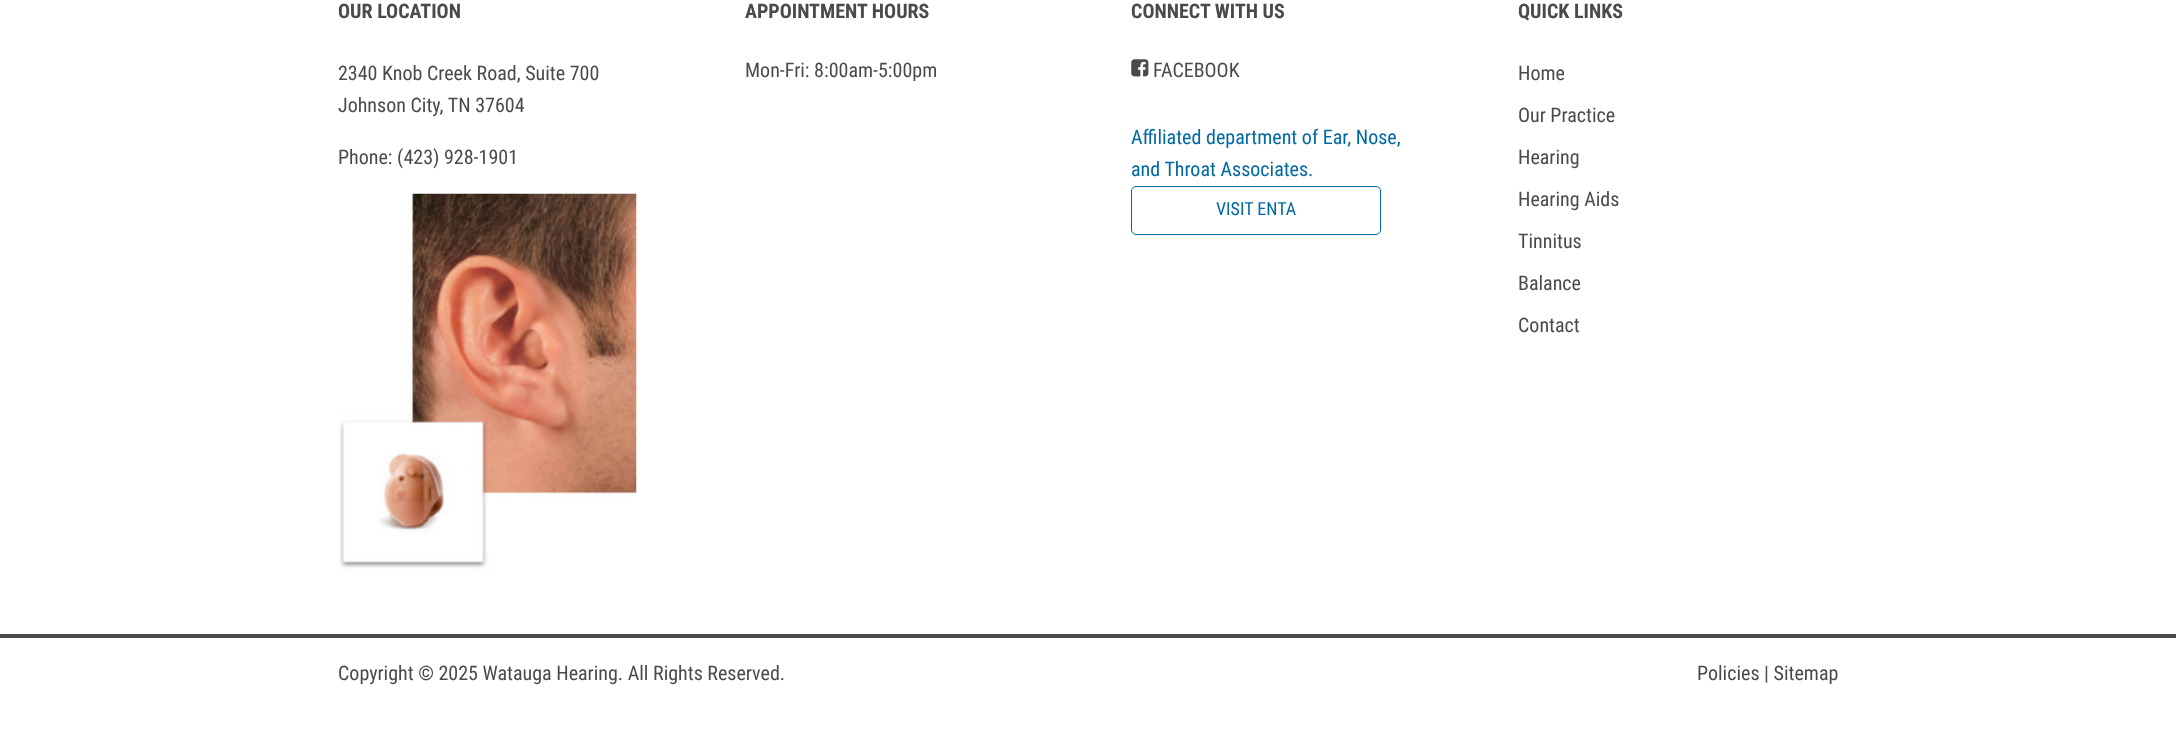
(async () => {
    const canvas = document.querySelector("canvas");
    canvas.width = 2176;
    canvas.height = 739;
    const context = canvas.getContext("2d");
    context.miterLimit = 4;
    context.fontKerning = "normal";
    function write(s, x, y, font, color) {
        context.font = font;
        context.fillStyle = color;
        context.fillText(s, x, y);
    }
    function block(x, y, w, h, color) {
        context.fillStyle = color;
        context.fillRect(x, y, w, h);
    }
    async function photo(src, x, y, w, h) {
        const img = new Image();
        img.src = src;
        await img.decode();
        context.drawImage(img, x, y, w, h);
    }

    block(0, 0, 2176, 739, "rgb(255, 255, 255)");
    write("OUR LOCATION", 338, 18, "bold 20px Roboto Condensed", "rgb(74, 74, 74)");
    write("2340 Knob Creek Road, Suite 700", 338, 80, "20px Roboto Condensed", "rgb(74, 74, 74)");
    write("Johnson City, TN 37604", 338, 112, "20px Roboto Condensed", "rgb(74, 74, 74)");
    write("Phone: (423) 928-1901", 338, 164, "20px Roboto Condensed", "rgb(74, 74, 74)");
    await photo("media/1.png", 339, 193, 298, 376);
    write("APPOINTMENT HOURS", 745, 18, "bold 20px Roboto Condensed", "rgb(74, 74, 74)");
    write("Mon-Fri: 8:00am-5:00pm", 745, 77, "20px Roboto Condensed", "rgb(74, 74, 74)");
    write("CONNECT WITH US", 1131, 18, "bold 20px Roboto Condensed", "rgb(74, 74, 74)");
    await photo("media/2.png", 1131, 59, 18, 18);
    write("FACEBOOK", 1153, 77, "20px Roboto Condensed", "rgb(74, 74, 74)");
    write("Affiliated department of Ear, Nose,", 1131, 144, "20px Roboto Condensed", "rgb(0, 104, 163)");
    write("and Throat Associates.", 1131, 176, "20px Roboto Condensed", "rgb(0, 104, 163)");
    context.beginPath();
    context.roundRect(1131.5, 186.5, 249, 48, 4.5);
    context.strokeStyle = "rgb(0, 104, 163)";
    context.stroke();
    write("VISIT ENTA", 1216, 215, "18px Roboto Condensed", "rgb(0, 104, 163)");
    write("QUICK LINKS", 1518, 18, "bold 20px Roboto Condensed", "rgb(74, 74, 74)");
    write("Home", 1518, 80, "20px Roboto Condensed", "rgb(74, 74, 74)");
    write("Our Practice", 1518, 122, "20px Roboto Condensed", "rgb(74, 74, 74)");
    write("Hearing", 1518, 164, "20px Roboto Condensed", "rgb(74, 74, 74)");
    write("Hearing Aids", 1518, 206, "20px Roboto Condensed", "rgb(74, 74, 74)");
    write("Tinnitus", 1518, 248, "20px Roboto Condensed", "rgb(74, 74, 74)");
    write("Balance", 1518, 290, "20px Roboto Condensed", "rgb(74, 74, 74)");
    write("Contact", 1518, 332, "20px Roboto Condensed", "rgb(74, 74, 74)");
    block(0, 634, 2176, 4, "rgb(74, 74, 74)");
    write("Copyright © 2025 Watauga Hearing. All Rights Reserved.", 338, 680, "20px Roboto Condensed", "rgb(74, 74, 74)");
    write("Policies | Sitemap", 1697, 680, "20px Roboto Condensed", "rgb(74, 74, 74)");
})();
